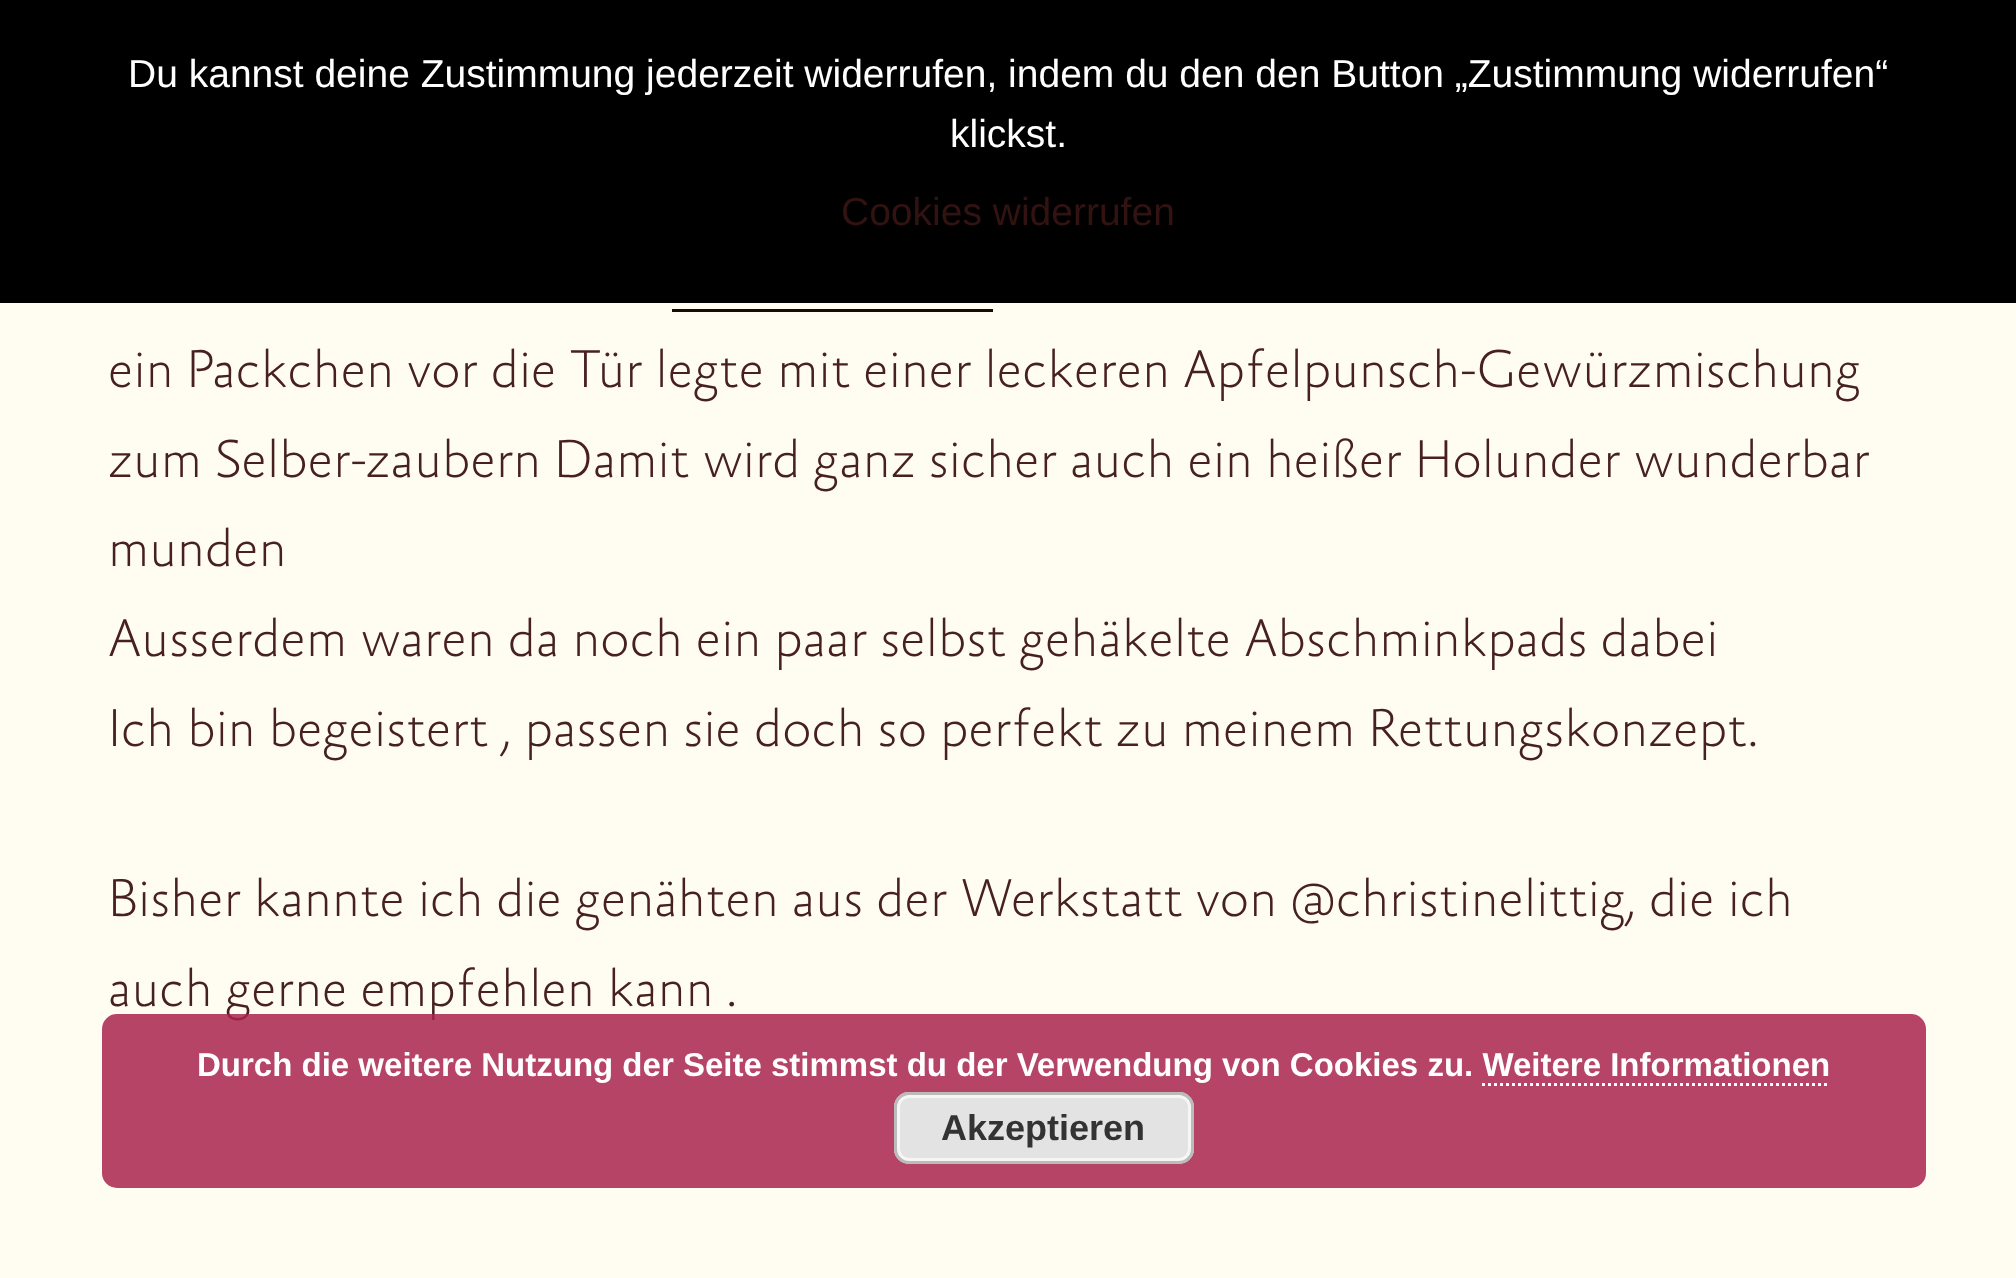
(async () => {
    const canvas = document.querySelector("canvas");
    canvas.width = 2016;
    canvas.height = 1278;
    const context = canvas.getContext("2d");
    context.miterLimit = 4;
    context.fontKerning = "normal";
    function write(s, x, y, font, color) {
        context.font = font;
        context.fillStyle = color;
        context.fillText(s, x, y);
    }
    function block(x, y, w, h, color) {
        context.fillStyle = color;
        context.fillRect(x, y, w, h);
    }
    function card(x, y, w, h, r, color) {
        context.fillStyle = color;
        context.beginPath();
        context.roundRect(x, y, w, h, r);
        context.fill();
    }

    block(0, 0, 2016, 1278, "rgb(255, 253, 242)");
    block(0, 0, 2016, 303, "rgb(0, 0, 0)");
    write("Du kannst deine Zustimmung jederzeit widerrufen, indem du den den Button „Zustimmung widerrufen“", 128, 87, "39px Liberation Sans", "rgb(255, 255, 255)");
    write("klickst.", 950, 147, "39px Liberation Sans", "rgb(255, 255, 255)");
    write("Cookies widerrufen", 841, 225, "39px Liberation Sans", "rgb(50, 19, 17)");
    block(672, 309, 321, 3, "rgb(23, 9, 8)");
    write("ein Packchen vor die Tür legte mit einer leckeren Apfelpunsch-Gewürzmischung", 108, 387, "100 54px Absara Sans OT", "rgb(71, 33, 31)");
    write("zum Selber-zaubern Damit wird ganz sicher auch ein heißer Holunder wunderbar", 108, 477, "100 54px Absara Sans OT", "rgb(71, 33, 31)");
    write("munden", 108, 566, "100 54px Absara Sans OT", "rgb(71, 33, 31)");
    write("Ausserdem waren da noch ein paar selbst gehäkelte Abschminkpads dabei", 108, 656, "100 54px Absara Sans OT", "rgb(71, 33, 31)");
    write("Ich bin begeistert , passen sie doch so perfekt zu meinem Rettungskonzept.", 108, 746, "100 54px Absara Sans OT", "rgb(71, 33, 31)");
    write("Bisher kannte ich die genähten aus der Werkstatt von @christinelittig, die ich", 108, 916, "100 54px Absara Sans OT", "rgb(71, 33, 31)");
    write("auch gerne empfehlen kann .", 108, 1006, "100 54px Absara Sans OT", "rgb(71, 33, 31)");
    card(102, 1014, 1824, 174, 15, "rgba(168, 35, 79, 0.85)");
    write("Durch die weitere Nutzung der Seite stimmst du der Verwendung von Cookies zu. Weitere Informationen", 197, 1076, "bold 33px Liberation Sans", "rgb(255, 255, 255)");
    context.beginPath();
    context.moveTo(1482, 1084.5);
    context.lineTo(1830, 1084.5);
    context.strokeStyle = "rgb(255, 255, 255)";
    context.lineWidth = 3;
    context.setLineDash([3, 3]);
    context.stroke();
    card(894, 1092, 300, 72, 15, "rgb(227, 227, 227)");
    context.beginPath();
    context.roundRect(898.5, 1096.5, 291, 63, 10.5);
    context.strokeStyle = "rgb(246, 246, 246)";
    context.setLineDash([]);
    context.stroke();
    context.beginPath();
    context.roundRect(895.5, 1093.5, 297, 69, 13.5);
    context.strokeStyle = "rgb(187, 187, 187)";
    context.stroke();
    write("Akzeptieren", 941, 1140, "bold 36px Liberation Sans", "rgb(51, 51, 51)");
})();
